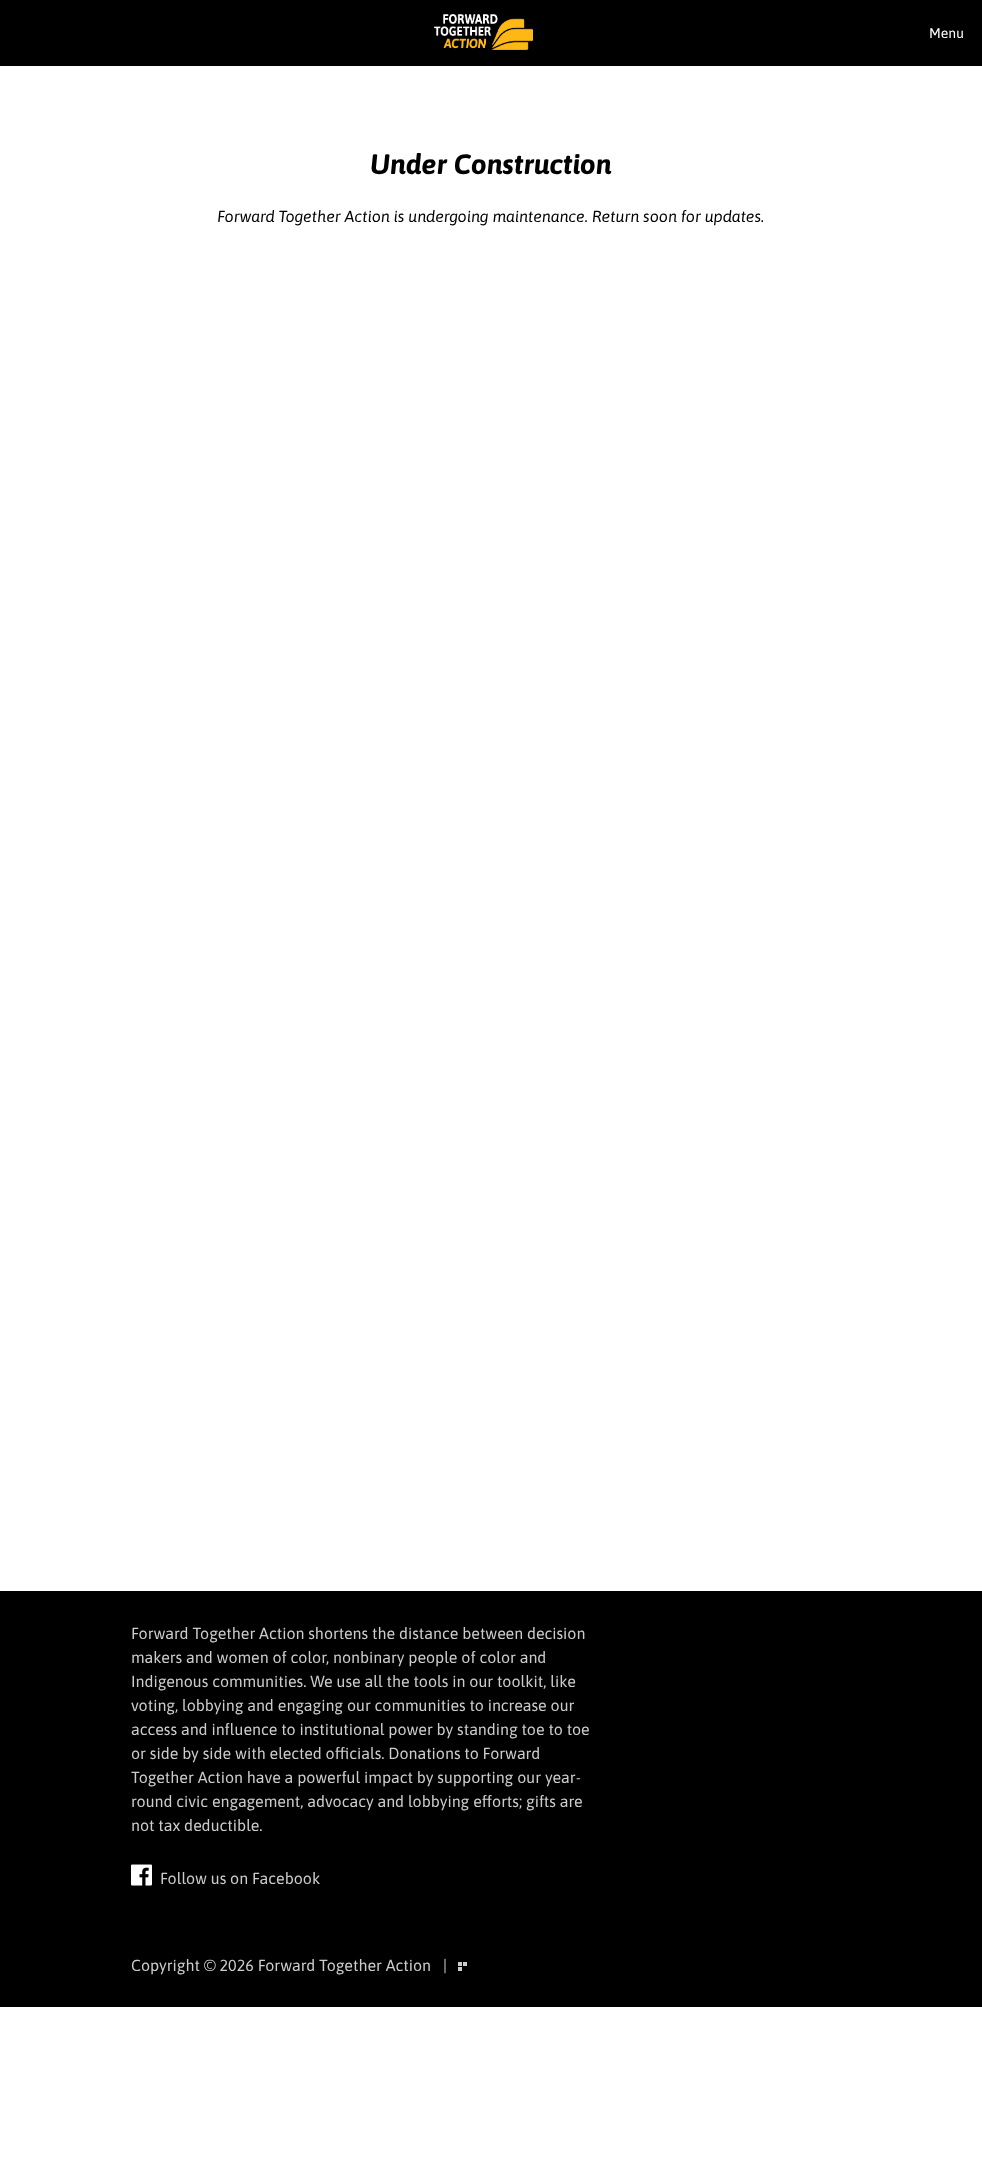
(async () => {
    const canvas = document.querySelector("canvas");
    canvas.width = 982;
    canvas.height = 2179;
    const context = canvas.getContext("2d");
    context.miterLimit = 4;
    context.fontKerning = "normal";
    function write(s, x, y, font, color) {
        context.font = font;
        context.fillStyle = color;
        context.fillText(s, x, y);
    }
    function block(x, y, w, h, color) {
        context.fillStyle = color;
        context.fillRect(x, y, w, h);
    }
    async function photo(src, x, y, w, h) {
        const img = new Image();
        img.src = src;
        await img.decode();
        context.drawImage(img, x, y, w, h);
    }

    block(0, 0, 982, 2179, "rgb(255, 255, 255)");
    block(0, 0, 982, 66, "rgb(0, 0, 0)");
    await photo("media/1.png", 434, 14, 99, 36);
    write("Menu", 929, 38, "14px Asap", "rgb(255, 255, 255)");
    write("Under Construction", 370, 174, "italic bold 28px Asap", "rgb(0, 0, 0)");
    write("Forward Together Action is undergoing maintenance. Return soon for updates.", 217, 222, "italic 16px Asap", "rgb(0, 0, 0)");
    block(0, 1591, 982, 416, "rgb(0, 0, 0)");
    write("Forward Together Action shortens the distance between decision", 131, 1639, "16px Asap", "rgb(204, 204, 204)");
    write("makers and women of color, nonbinary people of color and", 131, 1663, "16px Asap", "rgb(204, 204, 204)");
    write("Indigenous communities. We use all the tools in our toolkit, like", 131, 1687, "16px Asap", "rgb(204, 204, 204)");
    write("voting, lobbying and engaging our communities to increase our", 131, 1711, "16px Asap", "rgb(204, 204, 204)");
    write("access and influence to institutional power by standing toe to toe", 131, 1735, "16px Asap", "rgb(204, 204, 204)");
    write("or side by side with elected officials. Donations to Forward", 131, 1759, "16px Asap", "rgb(204, 204, 204)");
    write("Together Action have a powerful impact by supporting our year-", 131, 1783, "16px Asap", "rgb(204, 204, 204)");
    write("round civic engagement, advocacy and lobbying efforts; gifts are", 131, 1807, "16px Asap", "rgb(204, 204, 204)");
    write("not tax deductible.", 131, 1831, "16px Asap", "rgb(204, 204, 204)");
    await photo("media/2.png", 131, 1864, 21, 22);
    write("Follow us on Facebook", 160, 1884, "16px Asap", "rgb(204, 204, 204)");
    write("Copyright © 2026 Forward Together Action", 131, 1971, "16px Asap", "rgb(204, 204, 204)");
    write("|", 443, 1971, "16px Asap", "rgb(204, 204, 204)");
    await photo("media/3.png", 458, 1962, 9, 9);
})();
